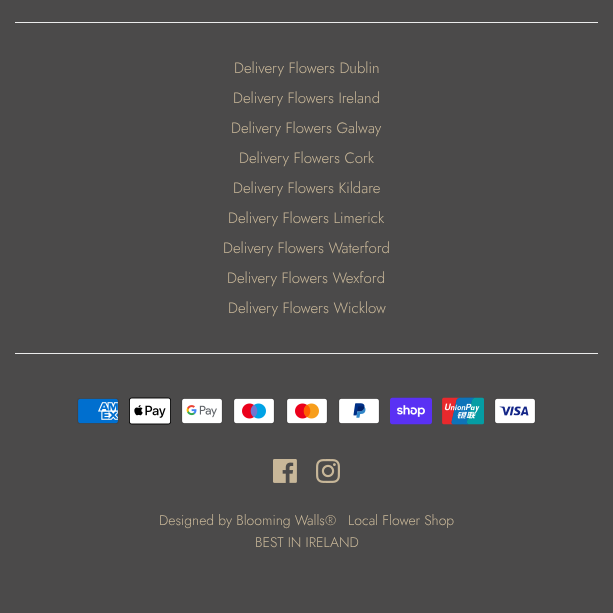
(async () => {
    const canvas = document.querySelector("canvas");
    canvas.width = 613;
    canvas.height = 613;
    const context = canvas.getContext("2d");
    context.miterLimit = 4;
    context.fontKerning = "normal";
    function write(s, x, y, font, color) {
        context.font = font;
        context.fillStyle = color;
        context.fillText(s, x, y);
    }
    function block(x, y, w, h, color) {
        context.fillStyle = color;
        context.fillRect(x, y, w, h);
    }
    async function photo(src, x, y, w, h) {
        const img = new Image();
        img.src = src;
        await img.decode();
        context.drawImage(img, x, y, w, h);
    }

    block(0, 0, 613, 613, "rgb(75, 74, 74)");
    block(15, 353, 583, 1, "rgb(235, 235, 235)");
    block(15, 22, 583, 1, "rgb(235, 235, 235)");
    write("Delivery Flowers Dublin", 234, 73, "300 15px Jost", "rgb(200, 183, 153)");
    write("Delivery Flowers Ireland", 233, 103, "300 15px Jost", "rgb(200, 183, 153)");
    write("Delivery Flowers Galway", 231, 133, "300 15px Jost", "rgb(200, 183, 153)");
    write("Delivery Flowers Cork", 239, 163, "300 15px Jost", "rgb(200, 183, 153)");
    write("Delivery Flowers Kildare", 233, 193, "300 15px Jost", "rgb(200, 183, 153)");
    write("Delivery Flowers Limerick", 228, 223, "300 15px Jost", "rgb(200, 183, 153)");
    write("Delivery Flowers Waterford", 223, 253, "300 15px Jost", "rgb(200, 183, 153)");
    write("Delivery Flowers Wexford", 227, 283, "300 15px Jost", "rgb(200, 183, 153)");
    write("Delivery Flowers Wicklow", 228, 313, "300 15px Jost", "rgb(200, 183, 153)");
    await photo("media/1.png", 77, 398, 42, 26);
    await photo("media/2.png", 129, 397, 42, 28);
    await photo("media/3.png", 181, 398, 42, 26);
    await photo("media/4.png", 233, 398, 42, 26);
    await photo("media/5.png", 286, 398, 42, 26);
    await photo("media/6.png", 338, 398, 42, 26);
    await photo("media/7.png", 390, 397, 42, 28);
    await photo("media/8.png", 442, 397, 42, 28);
    await photo("media/9.png", 494, 398, 42, 26);
    await photo("media/10.png", 273, 459, 24, 24);
    await photo("media/11.png", 316, 459, 24, 24);
    write("Designed by Blooming Walls®", 159, 525, "300 14px Jost", "rgb(200, 183, 153)");
    write("Local Flower Shop", 348, 525, "300 14px Jost", "rgb(200, 183, 153)");
    write("BEST IN IRELAND", 255, 547, "300 14px Jost", "rgb(200, 183, 153)");
})();
